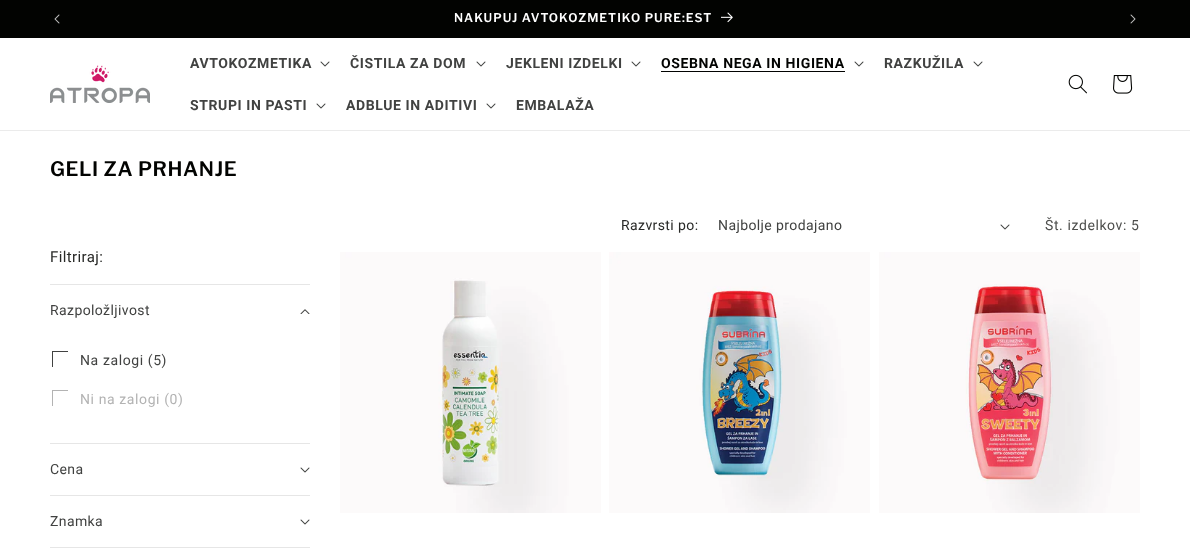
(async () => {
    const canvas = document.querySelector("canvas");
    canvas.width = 1190;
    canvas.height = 548;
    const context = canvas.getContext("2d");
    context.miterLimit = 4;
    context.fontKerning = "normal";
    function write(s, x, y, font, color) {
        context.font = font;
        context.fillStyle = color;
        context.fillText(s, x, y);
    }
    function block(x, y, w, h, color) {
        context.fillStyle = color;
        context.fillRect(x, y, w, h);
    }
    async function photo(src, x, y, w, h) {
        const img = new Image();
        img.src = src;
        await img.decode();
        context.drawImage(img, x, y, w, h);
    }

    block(0, 0, 1190, 548, "rgb(255, 255, 255)");
    block(0, 0, 1190, 38, "rgb(2, 3, 1)");
    await photo("media/1.png", 54, 14, 6, 10);
    context.letterSpacing = "1px";
    write("NAKUPUJ AVTOKOZMETIKO PURE:EST", 454, 22, "600 12px Libre Franklin", "rgb(255, 255, 255)");
    await photo("media/2.png", 721, 12, 12, 11);
    await photo("media/3.png", 1130, 14, 6, 10);
    block(0, 130, 1190, 1, "rgb(235, 235, 235)");
    await photo("media/4.png", 50, 65, 100, 38);
    context.letterSpacing = "0.6px";
    write("AVTOKOZMETIKA", 190, 68, "bold 14px Roboto", "rgb(65, 66, 65)");
    await photo("media/5.png", 320, 61, 10, 6);
    write("ČISTILA ZA DOM", 350, 68, "bold 14px Roboto", "rgb(65, 66, 65)");
    await photo("media/5.png", 476, 61, 10, 6);
    write("JEKLENI IZDELKI", 506, 68, "bold 14px Roboto", "rgb(65, 66, 65)");
    await photo("media/5.png", 631, 61, 10, 6);
    write("OSEBNA NEGA IN HIGIENA", 661, 68, "bold 14px Roboto", "rgb(2, 3, 1)");
    block(661, 71, 184, 1, "rgb(2, 3, 1)");
    await photo("media/5.png", 854, 61, 10, 6);
    write("RAZKUŽILA", 884, 68, "bold 14px Roboto", "rgb(65, 66, 65)");
    await photo("media/5.png", 973, 61, 10, 6);
    write("STRUPI IN PASTI", 190, 110, "bold 14px Roboto", "rgb(65, 66, 65)");
    await photo("media/5.png", 316, 103, 10, 6);
    write("ADBLUE IN ADITIVI", 346, 110, "bold 14px Roboto", "rgb(65, 66, 65)");
    await photo("media/5.png", 486, 103, 10, 6);
    write("EMBALAŽA", 516, 110, "bold 14px Roboto", "rgb(65, 66, 65)");
    await photo("media/6.png", 1068, 74, 19, 20);
    await photo("media/7.png", 1113, 75, 20, 19);
    write("GELI ZA PRHANJE", 50, 176, "600 20px Libre Franklin", "rgb(2, 3, 1)");
    context.letterSpacing = "0.4px";
    write("Razvrsti po:", 621, 230, "14px Roboto", "rgb(40, 41, 39)");
    write("Najbolje prodajano", 718, 230, "14px Roboto", "rgb(65, 66, 65)");
    await photo("media/5.png", 1000, 224, 10, 6);
    context.letterSpacing = "0.6px";
    write("Št. izdelkov: 5", 1045, 230, "14px Roboto", "rgb(78, 79, 77)");
    context.letterSpacing = "0.4px";
    write("Filtriraj:", 50, 262, "15px Roboto", "rgb(40, 41, 39)");
    block(50, 284, 260, 1, "rgb(230, 230, 230)");
    write("Razpoložljivost", 50, 315, "14px Roboto", "rgb(65, 66, 65)");
    await photo("media/8.png", 300, 309, 10, 5);
    context.save();
    context.beginPath();
    context.rect(52, 351, 16, 16);
    context.clip();
    context.strokeStyle = "rgb(65, 66, 65)";
    context.strokeRect(52.5, 351.5, 16, 16);
    context.restore();
    context.letterSpacing = "0.6px";
    write("Na zalogi (5)", 80, 365, "14px Roboto", "rgb(65, 66, 65)");
    context.save();
    context.beginPath();
    context.rect(52, 390, 16, 16);
    context.clip();
    context.strokeStyle = "rgb(179, 179, 179)";
    context.strokeRect(52.5, 390.5, 16, 16);
    context.restore();
    write("Ni na zalogi (0)", 80, 404, "14px Roboto", "rgb(179, 179, 179)");
    block(50, 443, 260, 1, "rgb(230, 230, 230)");
    context.letterSpacing = "0.4px";
    write("Cena", 50, 474, "14px Roboto", "rgb(65, 66, 65)");
    await photo("media/5.png", 300, 467, 10, 6);
    block(50, 495, 260, 1, "rgb(230, 230, 230)");
    write("Znamka", 50, 526, "14px Roboto", "rgb(65, 66, 65)");
    await photo("media/5.png", 300, 519, 10, 6);
    block(50, 547, 260, 1, "rgb(230, 230, 230)");
    await photo("media/9.png", 340, 252, 261, 261);
    await photo("media/10.png", 609, 252, 261, 261);
    await photo("media/11.png", 879, 252, 261, 261);
})();
